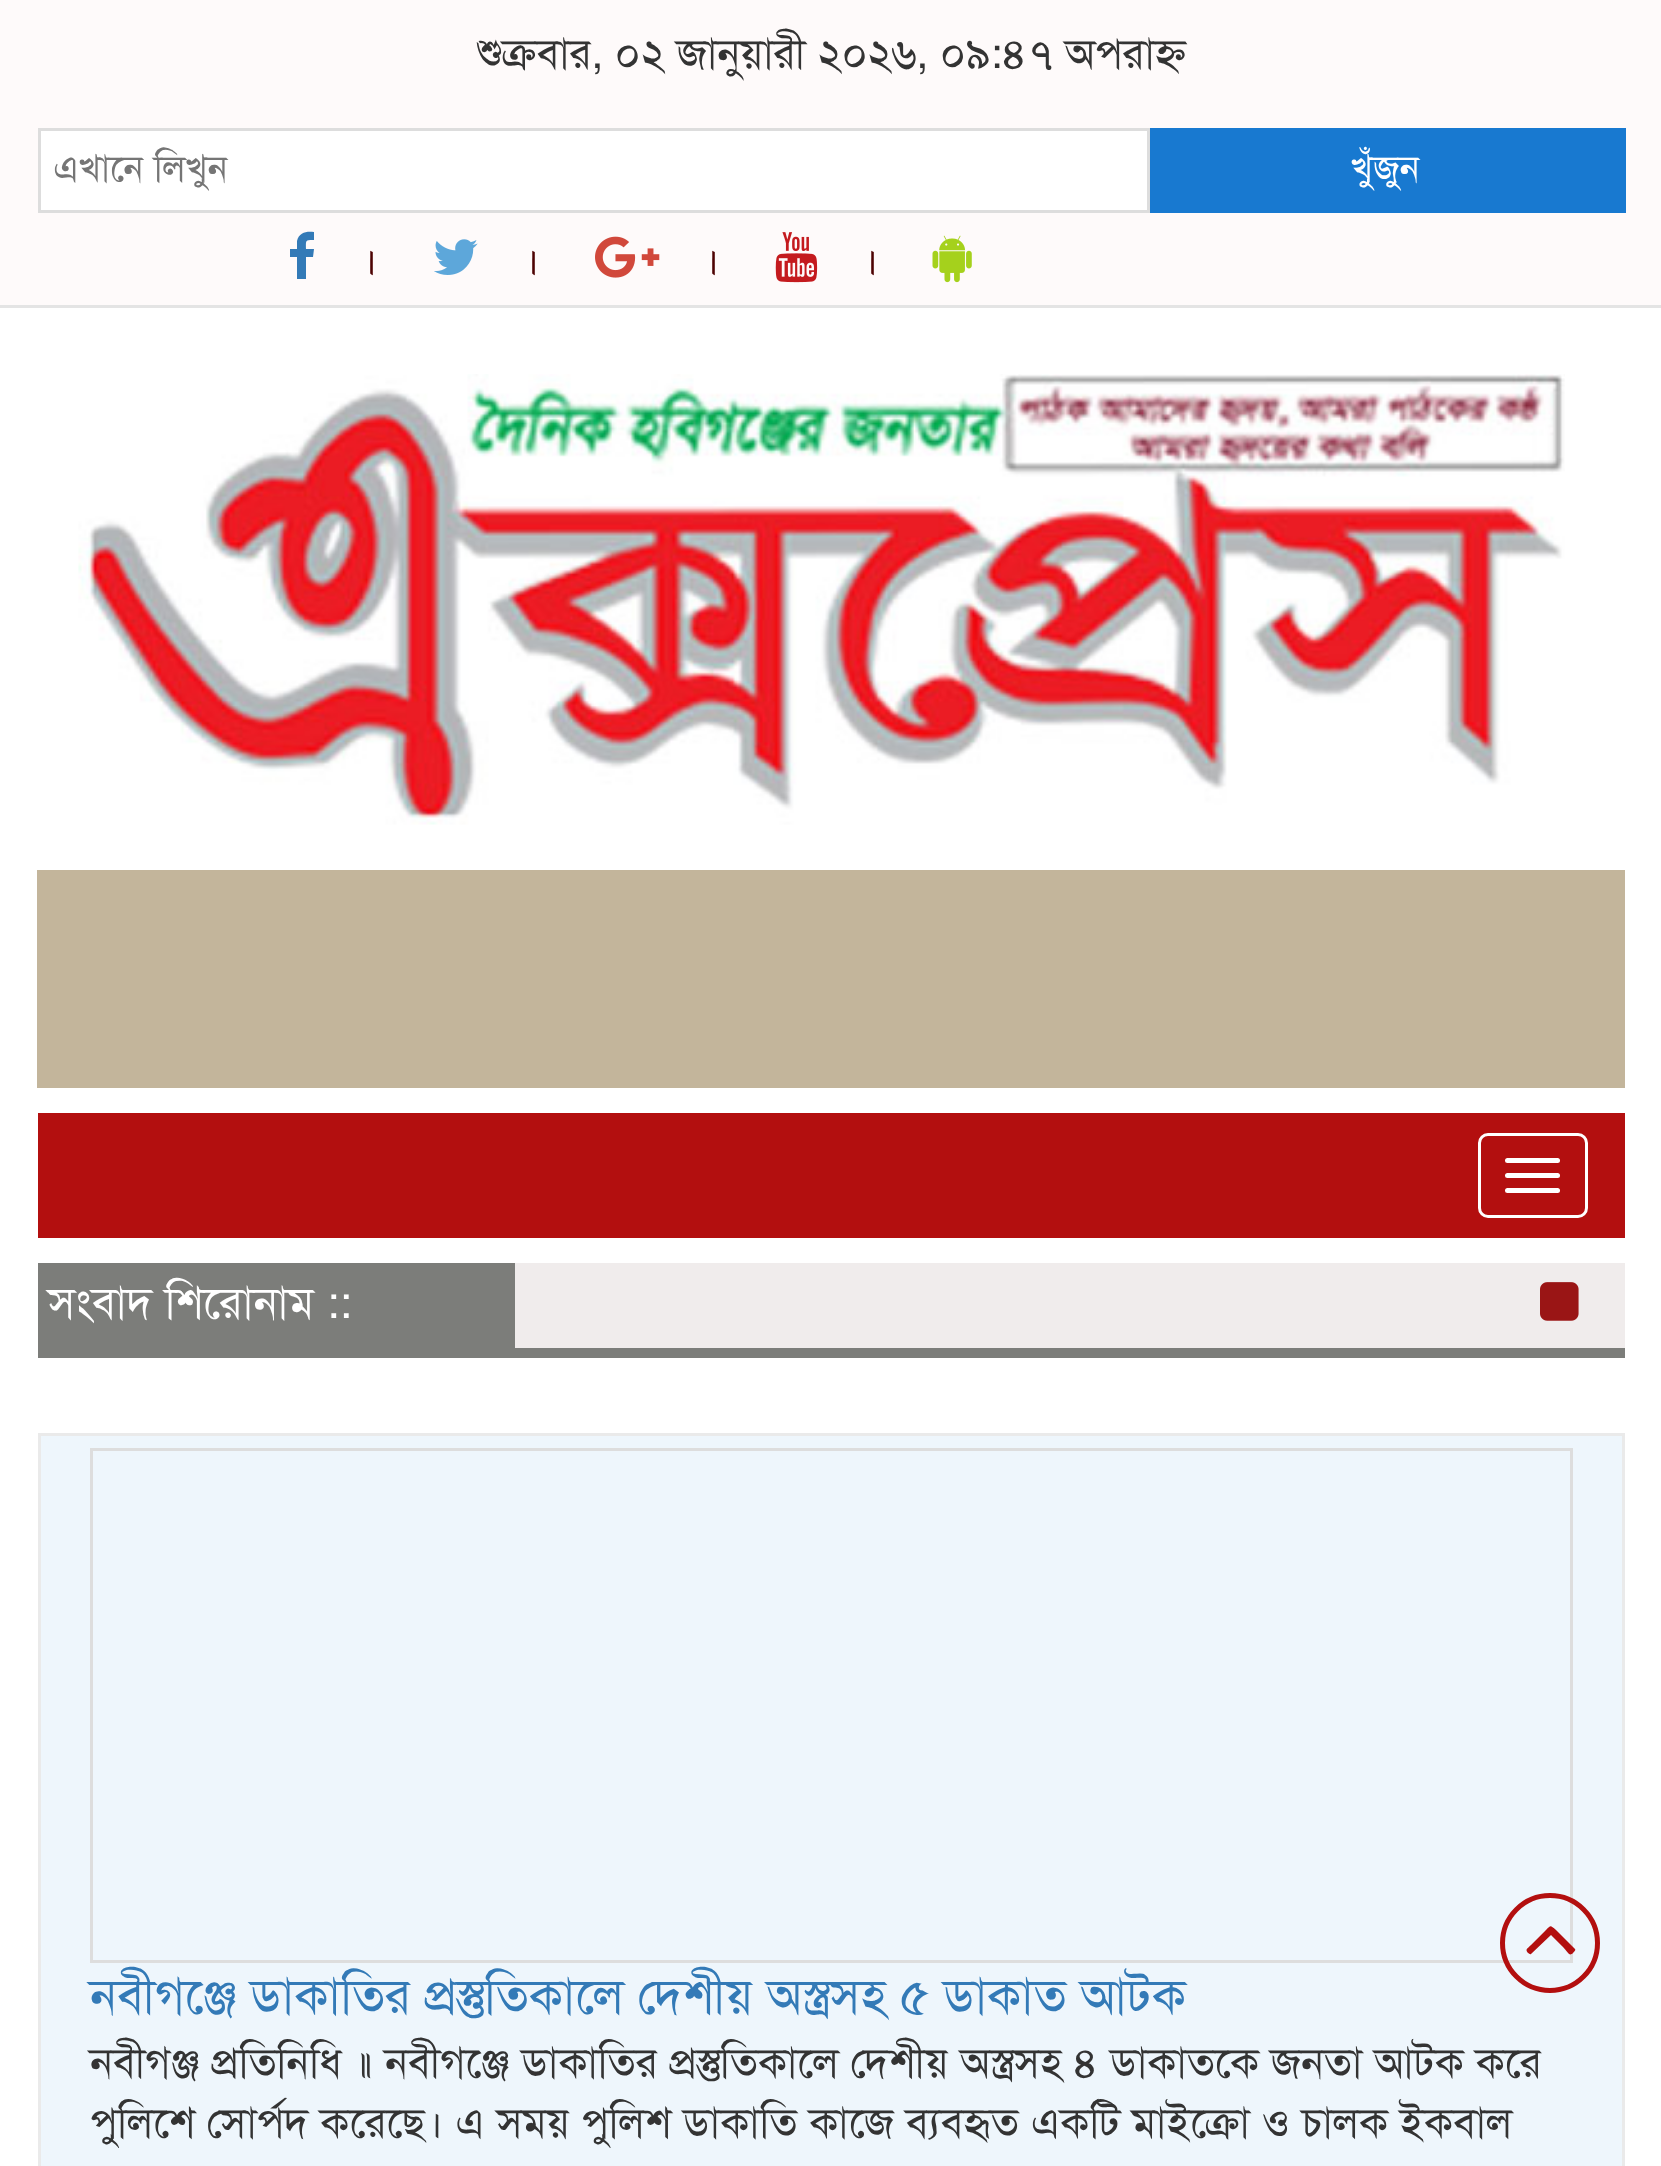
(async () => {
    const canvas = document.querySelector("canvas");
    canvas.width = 1661;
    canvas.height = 2166;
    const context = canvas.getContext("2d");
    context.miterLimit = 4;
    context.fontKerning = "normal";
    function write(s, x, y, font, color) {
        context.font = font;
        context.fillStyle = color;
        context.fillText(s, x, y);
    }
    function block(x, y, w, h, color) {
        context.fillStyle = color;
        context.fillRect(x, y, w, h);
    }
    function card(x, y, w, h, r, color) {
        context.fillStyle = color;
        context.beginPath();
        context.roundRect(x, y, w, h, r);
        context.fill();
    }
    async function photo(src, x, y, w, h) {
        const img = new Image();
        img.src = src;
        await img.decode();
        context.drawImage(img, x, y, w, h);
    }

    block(0, 0, 1661, 2166, "rgb(255, 255, 255)");
    block(0, 0, 1661, 305, "rgb(254, 250, 250)");
    block(0, 305, 1661, 3, "rgb(228, 228, 228)");
    write("শুক্রবার, ০২ জানুয়ারী ২০২৬, ০৯:৪৭ অপরাহ্ন", 477, 68, "42.5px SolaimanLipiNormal", "rgb(51, 51, 51)");
    context.fillStyle = "rgb(255, 255, 255)";
    context.beginPath();
    context.rect(39.5, 129.5, 1109, 82);
    context.fill();
    context.strokeStyle = "rgb(221, 221, 221)";
    context.lineWidth = 3;
    context.stroke();
    write("এখানে লিখুন", 53, 181, "37.5px SolaimanLipiNormal", "rgb(117, 117, 117)");
    block(1150, 128, 476, 85, "rgb(24, 121, 208)");
    write("খুঁজুন", 1351, 181, "37.5px SolaimanLipiNormal", "rgb(255, 255, 255)");
    context.fillStyle = "rgb(51, 122, 183)";
    context.beginPath();
    context.moveTo(314, 232);
    context.lineTo(314, 240);
    context.bezierCurveTo(305, 240, 306, 240, 306, 249);
    context.lineTo(314, 249);
    context.lineTo(313, 257);
    context.lineTo(306, 257);
    context.lineTo(306, 279);
    context.lineTo(297, 279);
    context.lineTo(297, 257);
    context.lineTo(290, 257);
    context.lineTo(290, 249);
    context.lineTo(297, 249);
    context.lineTo(297, 241);
    context.bezierCurveTo(299, 232, 307, 231, 314, 232);
    context.closePath();
    context.fill();
    write("।", 359, 274, "42.5px SolaimanLipiNormal", "rgb(77, 2, 2)");
    await photo("media/1.png", 434, 239, 44, 36);
    write("।", 521, 274, "42.5px SolaimanLipiNormal", "rgb(77, 2, 2)");
    await photo("media/2.png", 595, 236, 65, 42);
    write("।", 701, 274, "42.5px SolaimanLipiNormal", "rgb(77, 2, 2)");
    await photo("media/3.png", 775, 232, 43, 51);
    write("।", 860, 274, "42.5px SolaimanLipiNormal", "rgb(77, 2, 2)");
    await photo("media/4.png", 932, 235, 40, 48);
    await photo("media/5.png", 78, 374, 1487, 451);
    block(37, 870, 1588, 218, "rgb(195, 181, 155)");
    block(38, 1113, 1587, 125, "rgb(179, 15, 15)");
    context.beginPath();
    context.roundRect(1479.5, 1134.5, 107, 82, 8.5);
    context.strokeStyle = "rgb(255, 255, 255)";
    context.stroke();
    card(1505, 1158, 55, 5, 2.5, "rgb(255, 255, 255)");
    card(1505, 1173, 55, 5, 2.5, "rgb(255, 255, 255)");
    card(1505, 1188, 55, 5, 2.5, "rgb(255, 255, 255)");
    block(38, 1263, 477, 95, "rgb(124, 125, 122)");
    write("সংবাদ শিরোনাম ::", 48, 1318, "45px SolaimanLipiNormal", "rgb(255, 255, 255)");
    block(515, 1263, 1110, 85, "rgb(240, 236, 236)");
    block(515, 1348, 1110, 10, "rgb(124, 125, 122)");
    await photo("media/6.png", 1540, 1282, 39, 39);
    context.fillStyle = "rgb(238, 246, 252)";
    context.beginPath();
    context.rect(39.5, 1434.5, 1584, 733);
    context.fill();
    context.strokeStyle = "rgb(234, 234, 234)";
    context.stroke();
    context.strokeStyle = "rgb(221, 221, 221)";
    context.strokeRect(91.5, 1449.5, 1480, 512);
    context.beginPath();
    context.arc(1550, 1943, 47.5, 0, Math.PI * 2);
    context.strokeStyle = "rgb(179, 15, 15)";
    context.lineWidth = 5;
    context.stroke();
    context.fillStyle = "rgb(179, 15, 15)";
    context.beginPath();
    context.moveTo(1575, 1949);
    context.bezierCurveTo(1576, 1950, 1574, 1952, 1573, 1953);
    context.bezierCurveTo(1569, 1957, 1568, 1952, 1563, 1947);
    context.lineTo(1551, 1935);
    context.lineTo(1531, 1954);
    context.bezierCurveTo(1530, 1955, 1529, 1953, 1528, 1953);
    context.bezierCurveTo(1525, 1949, 1527, 1949, 1531, 1945);
    context.lineTo(1546, 1930);
    context.bezierCurveTo(1551, 1925, 1550, 1925, 1556, 1930);
    context.closePath();
    context.fill();
    write("নবীগঞ্জে ডাকাতির প্রস্তুতিকালে দেশীয় অস্ত্রসহ ৫ ডাকাত আটক", 90, 2013, "50px SolaimanLipiNormal", "rgb(51, 122, 183)");
    write("নবীগঞ্জ প্রতিনিধি ॥ নবীগঞ্জে ডাকাতির প্রস্তুতিকালে দেশীয় অস্ত্রসহ ৪ ডাকাতকে জনতা আটক করে", 90, 2077, "42.5px SolaimanLipiNormal", "rgb(51, 51, 51)");
    write("পুলিশে সোর্পদ করেছে। এ সময় পুলিশ ডাকাতি কাজে ব্যবহৃত একটি মাইক্রো ও চালক ইকবাল", 90, 2137, "42.5px SolaimanLipiNormal", "rgb(51, 51, 51)");
})();
